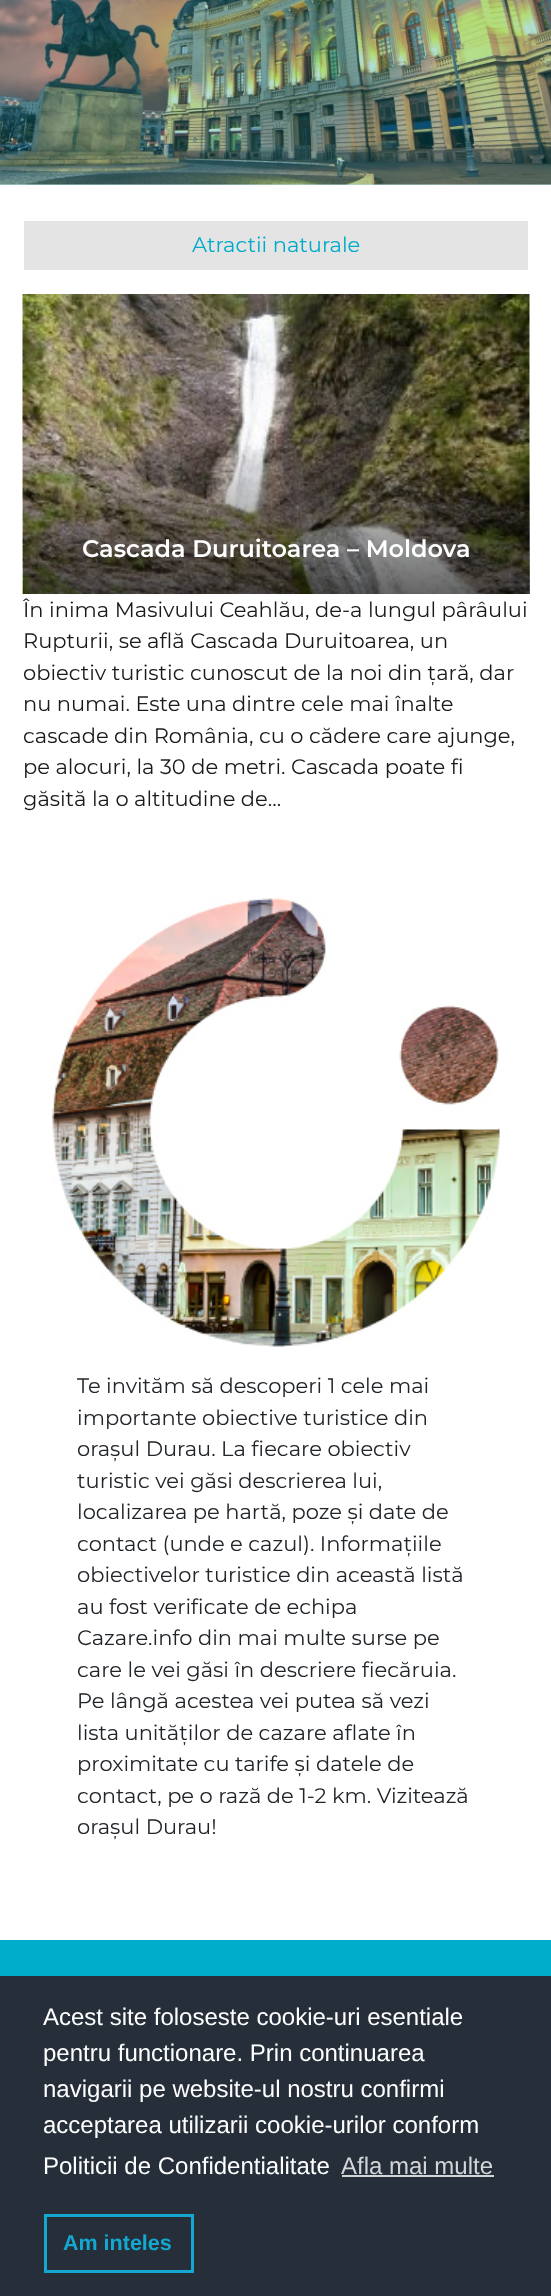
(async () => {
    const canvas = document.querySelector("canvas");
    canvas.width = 551;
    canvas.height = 2296;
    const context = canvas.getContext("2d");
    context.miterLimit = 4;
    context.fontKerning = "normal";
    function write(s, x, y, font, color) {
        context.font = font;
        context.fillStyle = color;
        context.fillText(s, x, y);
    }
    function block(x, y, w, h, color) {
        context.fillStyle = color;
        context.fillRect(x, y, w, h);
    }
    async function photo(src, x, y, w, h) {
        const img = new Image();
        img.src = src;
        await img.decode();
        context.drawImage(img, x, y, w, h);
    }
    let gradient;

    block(0, 0, 551, 2296, "rgb(255, 255, 255)");
    block(0, 184, 551, 1, "rgb(181, 222, 226)");
    await photo("media/1.png", 0, 0, 551, 185);
    block(24, 221, 504, 49, "rgb(228, 228, 228)");
    write("Atractii naturale", 192, 252, "21px Montserrat", "rgb(0, 171, 201)");
    await photo("media/2.png", 22, 294, 508, 300);
    gradient = context.createLinearGradient(276, 444, 276, 594);
    gradient.addColorStop(0, "rgba(0, 0, 0, 0)");
    gradient.addColorStop(1, "rgba(0, 0, 0, 0.6)");
    context.fillStyle = gradient;
    context.fillRect(23, 449, 507, 145);
    write("Cascada Duruitoarea – Moldova", 82, 557, "600 24px Montserrat", "rgb(255, 255, 255)");
    write("În inima Masivului Ceahlău, de-a lungul pârâului", 23, 617, "21px Montserrat", "rgb(26, 26, 26)");
    write("Rupturii, se află Cascada Duruitoarea, un", 23, 648, "21px Montserrat", "rgb(26, 26, 26)");
    write("obiectiv turistic cunoscut de la noi din țară, dar", 23, 680, "21px Montserrat", "rgb(26, 26, 26)");
    write("nu numai. Este una dintre cele mai înalte", 23, 711, "21px Montserrat", "rgb(26, 26, 26)");
    write("cascade din România, cu o cădere care ajunge,", 23, 743, "21px Montserrat", "rgb(26, 26, 26)");
    write("pe alocuri, la 30 de metri. Cascada poate fi", 23, 774, "21px Montserrat", "rgb(26, 26, 26)");
    write("găsită la o altitudine de...", 23, 806, "21px Montserrat", "rgb(26, 26, 26)");
    await photo("media/3.png", 52, 898, 448, 449);
    write("Te invităm să descoperi 1 cele mai", 77, 1393, "21px Montserrat", "rgb(33, 37, 41)");
    write("importante obiective turistice din", 77, 1425, "21px Montserrat", "rgb(33, 37, 41)");
    write("orașul Durau. La fiecare obiectiv", 77, 1456, "21px Montserrat", "rgb(33, 37, 41)");
    write("turistic vei găsi descrierea lui,", 77, 1488, "21px Montserrat", "rgb(33, 37, 41)");
    write("localizarea pe hartă, poze și date de", 77, 1519, "21px Montserrat", "rgb(33, 37, 41)");
    write("contact (unde e cazul). Informațiile", 77, 1551, "21px Montserrat", "rgb(33, 37, 41)");
    write("obiectivelor turistice din această listă", 77, 1582, "21px Montserrat", "rgb(33, 37, 41)");
    write("au fost verificate de echipa", 77, 1614, "21px Montserrat", "rgb(33, 37, 41)");
    write("Cazare.info din mai multe surse pe", 77, 1645, "21px Montserrat", "rgb(33, 37, 41)");
    write("care le vei găsi în descriere fiecăruia.", 77, 1677, "21px Montserrat", "rgb(33, 37, 41)");
    write("Pe lângă acestea vei putea să vezi", 77, 1708, "21px Montserrat", "rgb(33, 37, 41)");
    write("lista unităților de cazare aflate în", 77, 1740, "21px Montserrat", "rgb(33, 37, 41)");
    write("proximitate cu tarife și datele de", 77, 1771, "21px Montserrat", "rgb(33, 37, 41)");
    write("contact, pe o rază de 1-2 km. Vizitează", 77, 1803, "21px Montserrat", "rgb(33, 37, 41)");
    write("orașul Durau!", 77, 1834, "21px Montserrat", "rgb(33, 37, 41)");
    block(0, 1940, 551, 36, "rgb(0, 174, 204)");
    block(0, 1976, 551, 320, "rgb(37, 46, 57)");
    write("Acest site foloseste cookie-uri esentiale", 43, 2025, "24px Liberation Sans", "rgb(255, 255, 255)");
    write("pentru functionare. Prin continuarea", 43, 2061, "24px Liberation Sans", "rgb(255, 255, 255)");
    write("navigarii pe website-ul nostru confirmi", 43, 2097, "24px Liberation Sans", "rgb(255, 255, 255)");
    write("acceptarea utilizarii cookie-urilor conform", 43, 2133, "24px Liberation Sans", "rgb(255, 255, 255)");
    write("Politicii de Confidentialitate", 43, 2174, "24px Liberation Sans", "rgb(255, 255, 255)");
    write("Afla mai multe", 341, 2174, "24px Liberation Sans", "rgb(211, 213, 215)");
    block(342, 2175, 152, 2, "rgb(211, 213, 215)");
    context.strokeStyle = "rgb(20, 167, 208)";
    context.lineWidth = 3;
    context.strokeRect(45.5, 2215.5, 147, 56);
    write("Am inteles", 63, 2250, "bold 21.5px Liberation Sans", "rgb(20, 167, 208)");
})();
